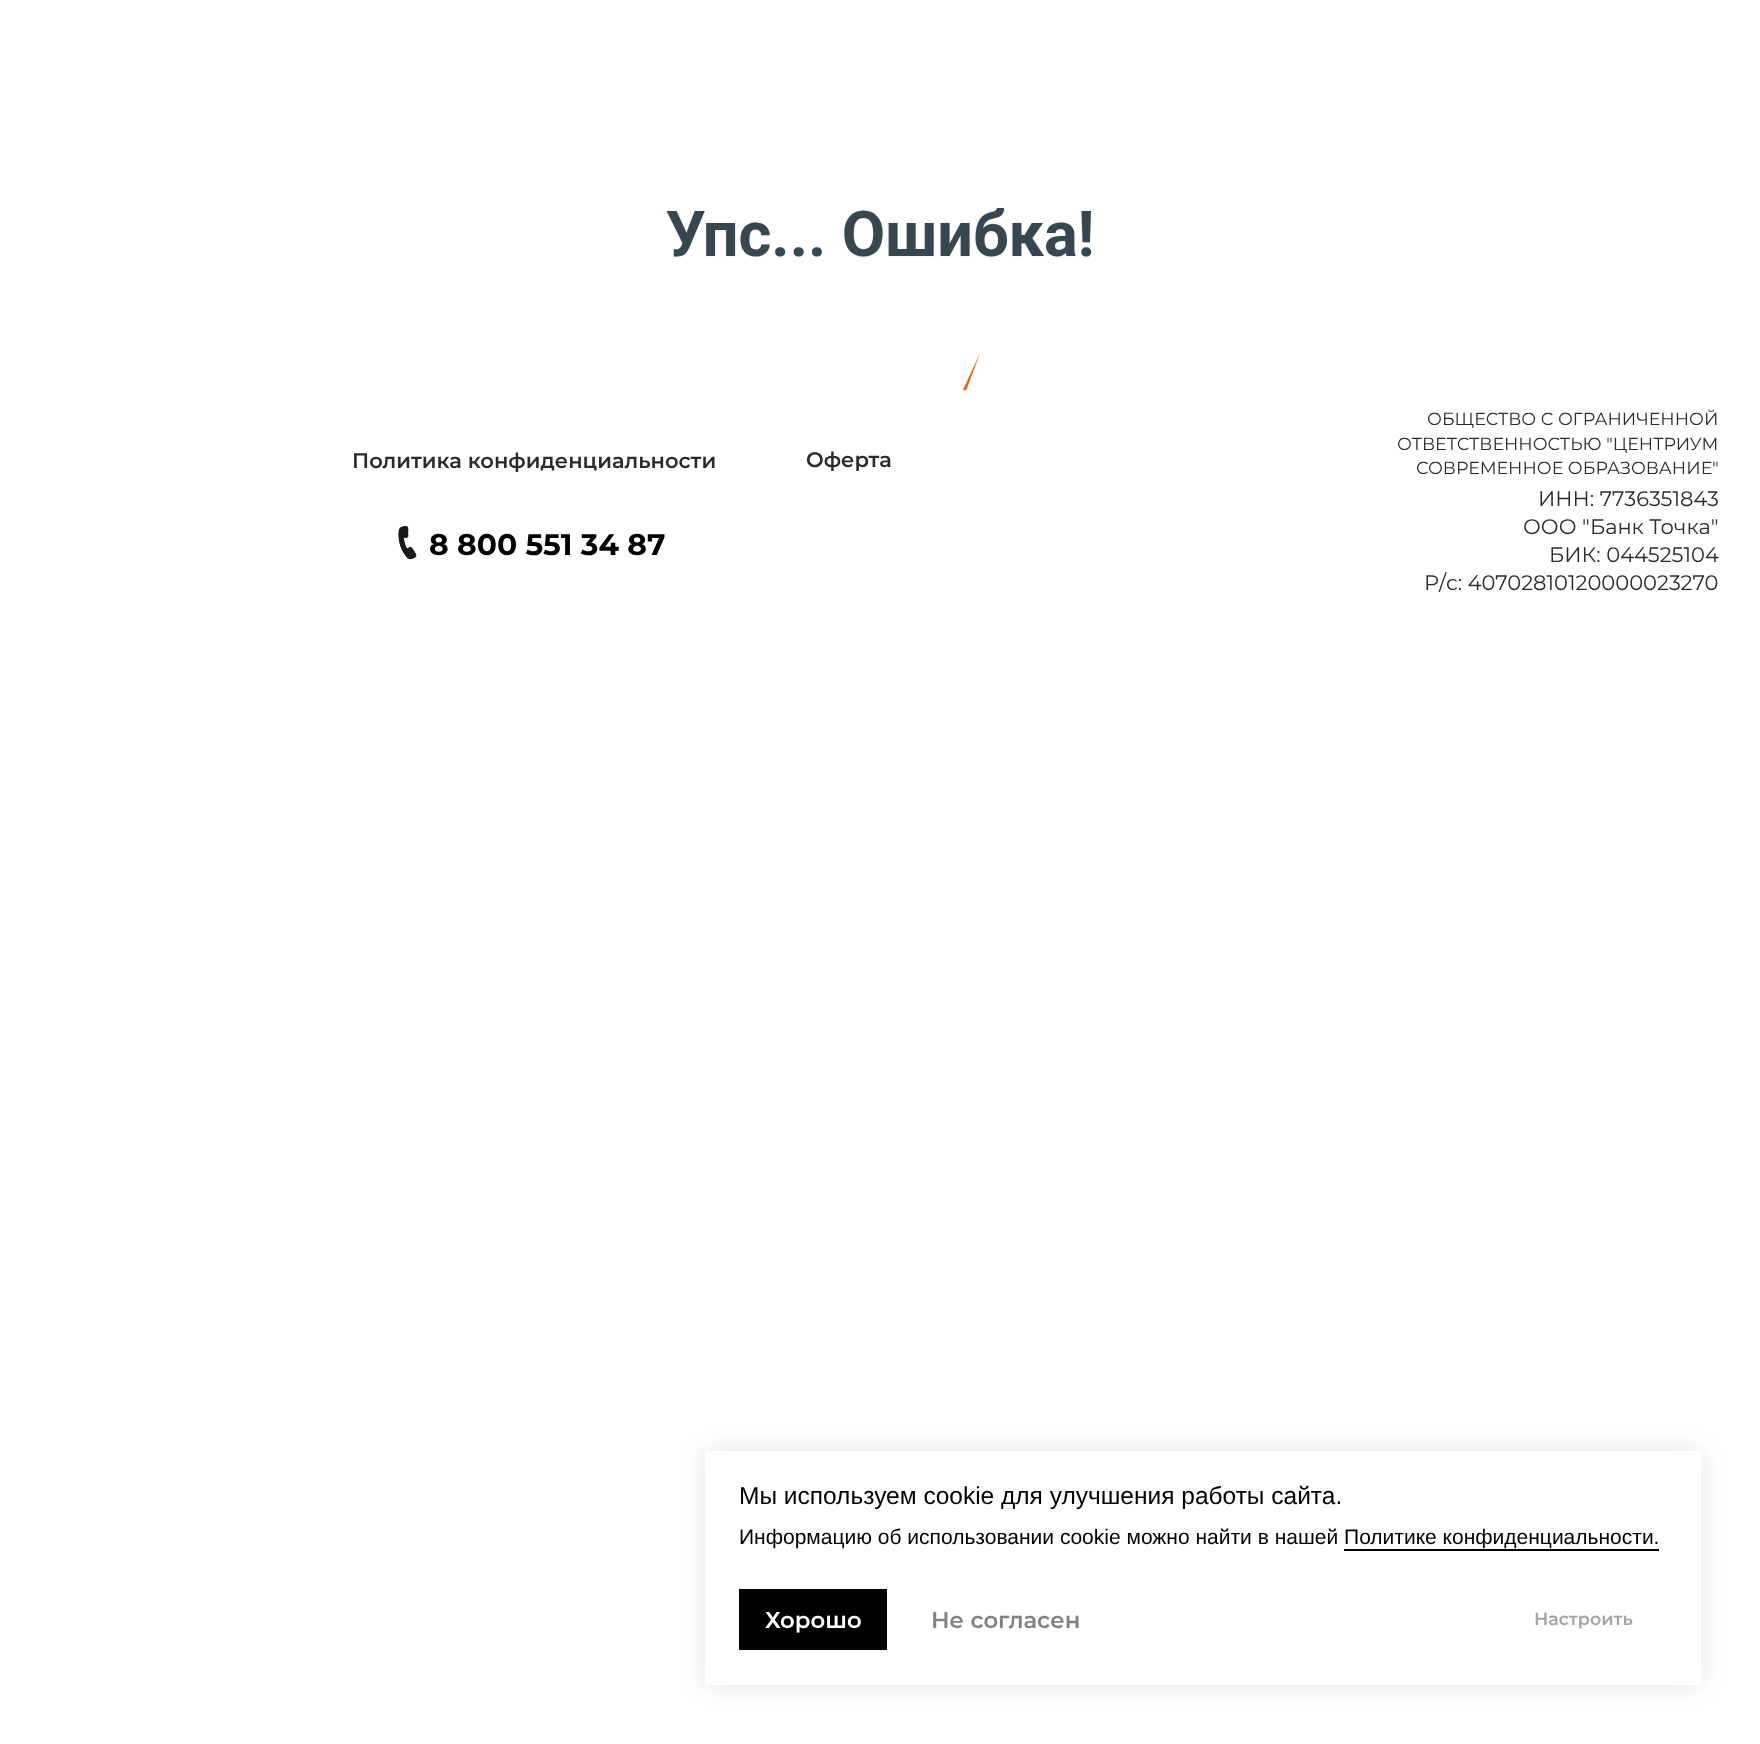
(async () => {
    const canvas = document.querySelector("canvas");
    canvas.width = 1760;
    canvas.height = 1744;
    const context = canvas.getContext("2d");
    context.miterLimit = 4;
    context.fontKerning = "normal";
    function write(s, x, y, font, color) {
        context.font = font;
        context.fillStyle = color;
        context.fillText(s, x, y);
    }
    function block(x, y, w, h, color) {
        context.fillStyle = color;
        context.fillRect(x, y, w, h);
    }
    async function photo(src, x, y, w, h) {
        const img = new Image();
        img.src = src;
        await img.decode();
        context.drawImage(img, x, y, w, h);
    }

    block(0, 0, 1760, 1744, "rgb(255, 255, 255)");
    await photo("media/1.png", 666, 207, 426, 184);
    write("Политика конфиденциальности", 352, 468, "600 21px Montserrat", "rgb(43, 43, 43)");
    write("Оферта", 806, 467, "600 21px Montserrat", "rgb(43, 43, 43)");
    write("ОБЩЕСТВО С ОГРАНИЧЕННОЙ", 1427, 425, "17.5px Montserrat", "rgb(43, 43, 43)");
    write("ОТВЕТСТВЕННОСТЬЮ \"ЦЕНТРИУМ", 1397, 450, "17.5px Montserrat", "rgb(43, 43, 43)");
    write("СОВРЕМЕННОЕ ОБРАЗОВАНИЕ\"", 1416, 474, "17.5px Montserrat", "rgb(43, 43, 43)");
    await photo("media/2.png", 398, 525, 19, 35);
    write("8 800 551 34 87", 429, 555, "bold 29.75px Montserrat", "rgb(0, 0, 0)");
    write("ИНН: 7736351843", 1538, 506, "21px Montserrat", "rgb(43, 43, 43)");
    write("ООО \"Банк Точка\"", 1523, 534, "21px Montserrat", "rgb(43, 43, 43)");
    write("БИК: 044525104", 1549, 562, "21px Montserrat", "rgb(43, 43, 43)");
    write("Р/с: 40702810120000023270", 1424, 590, "21px Montserrat", "rgb(43, 43, 43)");
    context.fillStyle = "rgba(0, 0, 0, 0.1)";
    context.filter = "blur(13px)";
    context.beginPath();
    context.rect(705, 1451, 996, 234);
    context.fill();
    context.filter = "none";
    block(705, 1451, 996, 234, "rgb(255, 255, 255)");
    write("Мы используем cookie для улучшения работы сайта.", 739, 1504, "24.5px Liberation Sans", "rgb(0, 0, 0)");
    write("Информацию об использовании cookie можно найти в нашей Политике конфиденциальности.", 739, 1544, "21px Liberation Sans", "rgb(0, 0, 0)");
    block(1344, 1549, 315, 2, "rgb(0, 0, 0)");
    block(739, 1589, 148, 61, "rgb(0, 0, 0)");
    write("Хорошо", 765, 1628, "600 22.75px Montserrat", "rgb(255, 255, 255)");
    write("Не согласен", 931, 1628, "600 22.75px Montserrat", "rgb(130, 130, 130)");
    write("Настроить", 1534, 1625, "600 17.5px Montserrat", "rgb(164, 164, 164)");
})();
